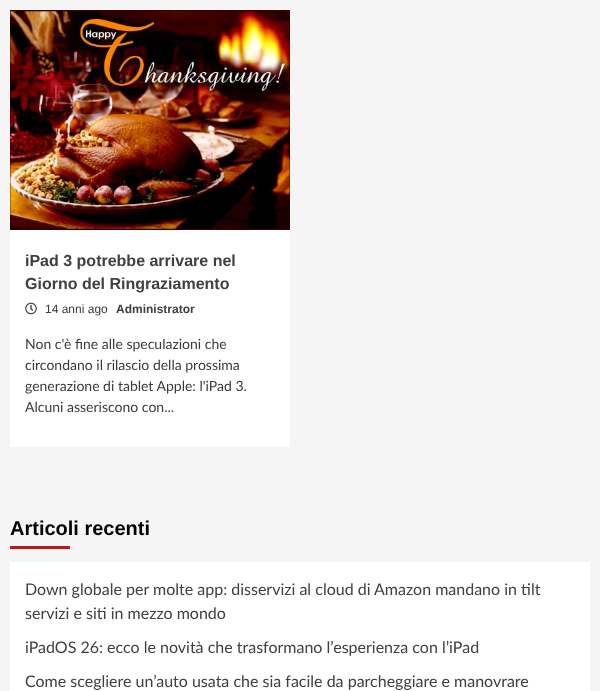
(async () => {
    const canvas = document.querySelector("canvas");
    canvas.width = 600;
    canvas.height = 691;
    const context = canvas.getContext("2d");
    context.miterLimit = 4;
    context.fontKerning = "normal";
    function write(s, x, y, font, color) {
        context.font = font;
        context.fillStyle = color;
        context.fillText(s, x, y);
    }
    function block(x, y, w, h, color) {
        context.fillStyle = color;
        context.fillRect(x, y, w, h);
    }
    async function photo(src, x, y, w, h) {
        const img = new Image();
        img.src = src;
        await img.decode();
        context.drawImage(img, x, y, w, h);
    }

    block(0, 0, 600, 691, "rgb(245, 245, 245)");
    block(10, 230, 280, 217, "rgb(255, 255, 255)");
    await photo("media/1.png", 10, 10, 280, 220);
    write("iPad 3 potrebbe arrivare nel", 25, 266, "bold 16px Liberation Sans", "rgb(64, 64, 64)");
    write("Giorno del Ringraziamento", 25, 289, "bold 16px Liberation Sans", "rgb(64, 64, 64)");
    await photo("media/2.png", 25, 302, 12, 13);
    write("14 anni ago", 45, 313, "12px Liberation Sans", "rgb(58, 58, 58)");
    write("Administrator", 116, 313, "bold 12px Liberation Sans", "rgb(64, 64, 64)");
    write("Non c'è fine alle speculazioni che", 25, 349, "14px Lato", "rgb(58, 58, 58)");
    write("circondano il rilascio della prossima", 25, 370, "14px Lato", "rgb(58, 58, 58)");
    write("generazione di tablet Apple: l'iPad 3.", 25, 391, "14px Lato", "rgb(58, 58, 58)");
    write("Alcuni asseriscono con...", 25, 412, "14px Lato", "rgb(58, 58, 58)");
    write("Articoli recenti", 10, 535, "bold 20px Liberation Sans", "rgb(0, 0, 0)");
    block(10, 546, 60, 3, "rgb(187, 25, 25)");
    block(10, 562, 580, 129, "rgb(255, 255, 255)");
    write("Down globale per molte app: disservizi al cloud di Amazon mandano in tilt", 25, 595, "16px Lato", "rgb(64, 64, 64)");
    write("servizi e siti in mezzo mondo", 25, 619, "16px Lato", "rgb(64, 64, 64)");
    write("iPadOS 26: ecco le novità che trasformano l’esperienza con l’iPad", 25, 653, "16px Lato", "rgb(64, 64, 64)");
    write("Come scegliere un’auto usata che sia facile da parcheggiare e manovrare", 25, 687, "16px Lato", "rgb(64, 64, 64)");
})();
